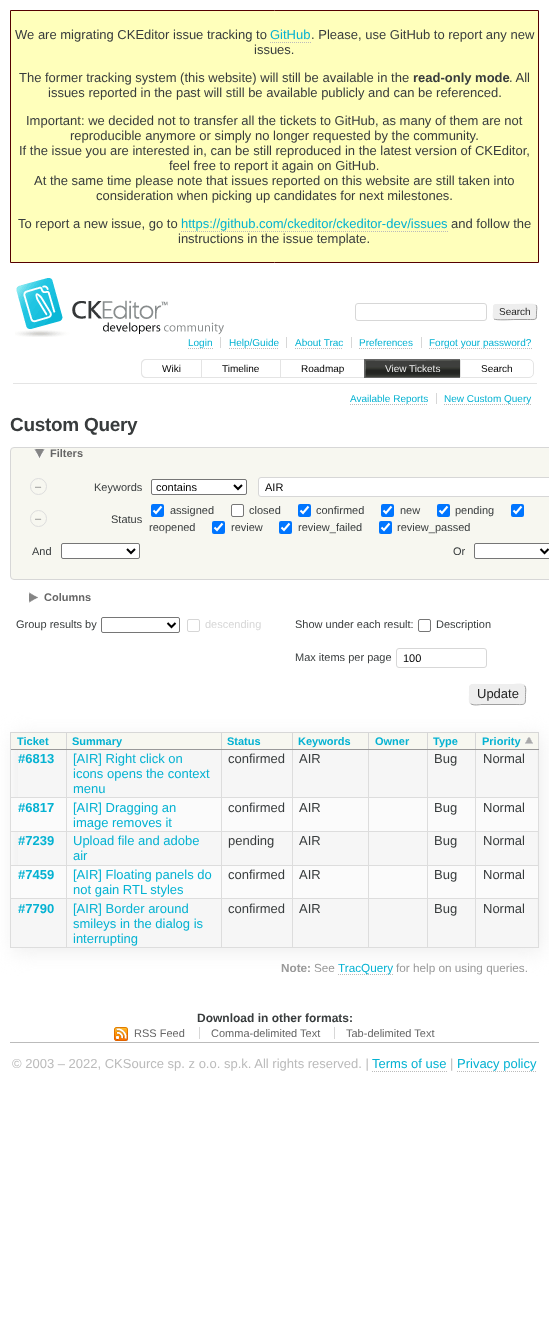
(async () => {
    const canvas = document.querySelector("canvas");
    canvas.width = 549;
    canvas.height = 1321;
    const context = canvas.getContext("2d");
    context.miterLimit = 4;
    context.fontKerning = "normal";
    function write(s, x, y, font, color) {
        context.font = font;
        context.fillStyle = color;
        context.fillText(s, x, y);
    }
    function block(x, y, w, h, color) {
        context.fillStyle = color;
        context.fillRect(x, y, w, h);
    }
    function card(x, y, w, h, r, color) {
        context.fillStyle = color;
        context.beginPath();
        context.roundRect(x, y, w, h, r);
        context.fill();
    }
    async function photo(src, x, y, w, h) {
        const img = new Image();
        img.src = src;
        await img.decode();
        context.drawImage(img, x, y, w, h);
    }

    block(0, 0, 549, 1321, "rgb(255, 255, 255)");
    context.fillStyle = "rgb(255, 255, 187)";
    context.beginPath();
    context.rect(10.5, 10.5, 528, 252);
    context.fill();
    context.strokeStyle = "rgb(85, 0, 0)";
    context.stroke();
    write("We are migrating CKEditor issue tracking to", 15, 39, "13px Liberation Sans", "rgb(56, 60, 61)");
    write("GitHub", 270, 39, "13px Liberation Sans", "rgb(5, 178, 210)");
    context.beginPath();
    context.moveTo(270, 42.5);
    context.lineTo(311, 42.5);
    context.strokeStyle = "rgb(187, 187, 187)";
    context.setLineDash([1, 1]);
    context.stroke();
    write(". Please, use GitHub to report any new", 311, 39, "13px Liberation Sans", "rgb(56, 60, 61)");
    write("issues.", 254, 54, "13px Liberation Sans", "rgb(56, 60, 61)");
    write("The former tracking system (this website) will still be available in the", 19, 82, "13px Liberation Sans", "rgb(56, 60, 61)");
    write("read-only mode", 413, 82, "bold 13px Liberation Sans", "rgb(56, 60, 61)");
    write(". All", 509, 82, "13px Liberation Sans", "rgb(56, 60, 61)");
    write("issues reported in the past will still be available publicly and can be referenced.", 48, 97, "13px Liberation Sans", "rgb(56, 60, 61)");
    write("Important: we decided not to transfer all the tickets to GitHub, as many of them are not", 26, 125, "13px Liberation Sans", "rgb(56, 60, 61)");
    write("reproducible anymore or simply no longer requested by the community.", 70, 140, "13px Liberation Sans", "rgb(56, 60, 61)");
    write("If the issue you are interested in, can be still reproduced in the latest version of CKEditor,", 19, 155, "13px Liberation Sans", "rgb(56, 60, 61)");
    write("feel free to report it again on GitHub.", 169, 170, "13px Liberation Sans", "rgb(56, 60, 61)");
    write("At the same time please note that issues reported on this website are still taken into", 34, 185, "13px Liberation Sans", "rgb(56, 60, 61)");
    write("consideration when picking up candidates for next milestones.", 96, 200, "13px Liberation Sans", "rgb(56, 60, 61)");
    write("To report a new issue, go to", 18, 228, "13px Liberation Sans", "rgb(56, 60, 61)");
    write("https://github.com/ckeditor/ckeditor-dev/issues", 181, 228, "13px Liberation Sans", "rgb(5, 178, 210)");
    context.beginPath();
    context.moveTo(181, 231.5);
    context.lineTo(448, 231.5);
    context.stroke();
    write("and follow the", 451, 228, "13px Liberation Sans", "rgb(56, 60, 61)");
    write("instructions in the issue template.", 178, 243, "13px Liberation Sans", "rgb(56, 60, 61)");
    await photo("media/1.png", 15, 278, 209, 59);
    context.beginPath();
    context.roundRect(355.5, 303.5, 131, 17, 2.5);
    context.strokeStyle = "rgb(215, 215, 215)";
    context.setLineDash([]);
    context.stroke();
    card(493, 304, 44, 16, 3, "rgb(238, 238, 238)");
    context.beginPath();
    context.moveTo(536, 305);
    context.bezierCurveTo(537.5, 307, 536.5, 310, 536.5, 312);
    context.bezierCurveTo(536.5, 320.5, 537, 319.5, 527.5, 319.5);
    context.lineTo(515, 319.5);
    context.bezierCurveTo(512, 319.5, 496, 320.5, 494, 319);
    context.strokeStyle = "rgb(159, 159, 159)";
    context.stroke();
    context.beginPath();
    context.moveTo(494, 319);
    context.bezierCurveTo(492.5, 317, 493.5, 314, 493.5, 312);
    context.bezierCurveTo(493.5, 303.5, 493, 304.5, 502.5, 304.5);
    context.lineTo(515, 304.5);
    context.bezierCurveTo(518, 304.5, 534, 303.5, 536, 305);
    context.strokeStyle = "rgb(238, 238, 238)";
    context.stroke();
    write("Search", 499, 315, "10px Liberation Sans", "rgb(34, 34, 34)");
    block(220, 337, 1, 11, "rgb(215, 215, 215)");
    context.beginPath();
    context.moveTo(188, 348.5);
    context.lineTo(213, 348.5);
    context.strokeStyle = "rgb(187, 187, 187)";
    context.setLineDash([1, 1]);
    context.stroke();
    write("Login", 188, 346, "10px Liberation Sans", "rgb(5, 178, 210)");
    block(286, 337, 1, 11, "rgb(215, 215, 215)");
    context.beginPath();
    context.moveTo(229, 348.5);
    context.lineTo(279, 348.5);
    context.stroke();
    write("Help/Guide", 229, 346, "10px Liberation Sans", "rgb(5, 178, 210)");
    block(351, 337, 1, 11, "rgb(215, 215, 215)");
    write("About Trac", 295, 346, "10px Liberation Sans", "rgb(5, 178, 210)");
    context.beginPath();
    context.moveTo(295, 348.5);
    context.lineTo(343, 348.5);
    context.stroke();
    block(421, 337, 1, 11, "rgb(215, 215, 215)");
    write("Preferences", 359, 346, "10px Liberation Sans", "rgb(5, 178, 210)");
    context.beginPath();
    context.moveTo(359, 348.5);
    context.lineTo(413, 348.5);
    context.stroke();
    context.beginPath();
    context.moveTo(429, 348.5);
    context.lineTo(532, 348.5);
    context.stroke();
    write("Forgot your password?", 429, 346, "10px Liberation Sans", "rgb(5, 178, 210)");
    block(13, 383, 524, 1, "rgb(228, 228, 228)");
    context.beginPath();
    context.moveTo(146, 359);
    context.lineTo(201, 359);
    context.lineTo(201, 378);
    context.lineTo(146, 378);
    context.bezierCurveTo(143, 378, 141, 376, 141, 373);
    context.lineTo(141, 364);
    context.bezierCurveTo(141, 361, 143, 359, 146, 359);
    context.closePath();
    context.moveTo(146, 360);
    context.lineTo(201, 360);
    context.lineTo(201, 377);
    context.lineTo(146, 377);
    context.bezierCurveTo(144, 377, 142, 375, 142, 373);
    context.lineTo(142, 364);
    context.bezierCurveTo(142, 362, 144, 360, 146, 360);
    context.closePath();
    context.fill("evenodd");
    write("Wiki", 162, 372, "10px Liberation Sans", "rgb(0, 0, 0)");
    block(201, 359, 163, 1, "rgb(228, 228, 228)");
    block(201, 377, 163, 1, "rgb(228, 228, 228)");
    block(201, 359, 1, 19, "rgb(228, 228, 228)");
    write("Timeline", 222, 372, "10px Liberation Sans", "rgb(0, 0, 0)");
    block(280, 359, 1, 19, "rgb(228, 228, 228)");
    write("Roadmap", 301, 372, "10px Liberation Sans", "rgb(0, 0, 0)");
    block(364, 359, 96, 1, "rgb(102, 102, 102)");
    block(364, 377, 96, 1, "rgb(102, 102, 102)");
    block(364, 359, 1, 19, "rgb(102, 102, 102)");
    block(365, 360, 95, 17, "rgb(0, 0, 0)");
    await photo("media/2.png", 365, 360, 95, 17);
    write("View Tickets", 385, 372, "10px Liberation Sans", "rgb(238, 238, 238)");
    context.beginPath();
    context.roundRect(460.5, 359.5, 73, 18, [0, 4.5, 4.5, 0]);
    context.strokeStyle = "rgb(228, 228, 228)";
    context.setLineDash([]);
    context.stroke();
    write("Search", 481, 372, "10px Liberation Sans", "rgb(0, 0, 0)");
    block(436, 393, 1, 11, "rgb(215, 215, 215)");
    context.beginPath();
    context.moveTo(350, 404.5);
    context.lineTo(428, 404.5);
    context.strokeStyle = "rgb(187, 187, 187)";
    context.setLineDash([1, 1]);
    context.stroke();
    write("Available Reports", 350, 402, "10px Liberation Sans", "rgb(5, 178, 210)");
    context.beginPath();
    context.moveTo(444, 404.5);
    context.lineTo(532, 404.5);
    context.stroke();
    write("New Custom Query", 444, 402, "10px Liberation Sans", "rgb(5, 178, 210)");
    context.letterSpacing = "-0.3px";
    write("Custom Query", 10, 431, "bold 19px Liberation Sans", "rgb(56, 60, 61)");
    context.fillStyle = "rgb(247, 247, 240)";
    context.beginPath();
    context.roundRect(10.5, 447.5, 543, 132, 3.5);
    context.fill();
    context.strokeStyle = "rgb(215, 215, 215)";
    context.setLineDash([]);
    context.stroke();
    await photo("media/3.png", 34, 449, 11, 9);
    context.letterSpacing = "0px";
    write("Filters", 50, 457, "bold 11px Liberation Sans", "rgb(102, 102, 102)");
    context.beginPath();
    context.arc(38.5, 486.5, 8, 0, Math.PI * 2);
    context.strokeStyle = "rgb(221, 221, 221)";
    context.stroke();
    write("–", 35, 490, "11px Liberation Sans", "rgb(128, 128, 128)");
    write("Keywords", 94, 491, "11px Liberation Sans", "rgb(56, 60, 61)");
    context.fillStyle = "rgb(255, 255, 255)";
    context.beginPath();
    context.roundRect(151.5, 479.5, 95, 15, 1.5);
    context.fill();
    context.strokeStyle = "rgb(118, 118, 118)";
    context.stroke();
    context.beginPath();
    context.moveTo(234, 485);
    context.lineTo(238, 489);
    context.lineTo(242, 485);
    context.strokeStyle = "rgb(0, 0, 0)";
    context.lineWidth = 2;
    context.stroke();
    write("contains", 156, 491, "11px Liberation Sans", "rgb(0, 0, 0)");
    context.fillStyle = "rgb(255, 255, 255)";
    context.beginPath();
    context.roundRect(258.5, 477.5, 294, 19, 2.5);
    context.fill();
    context.strokeStyle = "rgb(215, 215, 215)";
    context.lineWidth = 1;
    context.stroke();
    write("AIR", 265, 491, "11px Liberation Sans", "rgb(0, 0, 0)");
    context.beginPath();
    context.arc(38.5, 518.5, 8, 0, Math.PI * 2);
    context.strokeStyle = "rgb(221, 221, 221)";
    context.stroke();
    write("–", 35, 522, "11px Liberation Sans", "rgb(128, 128, 128)");
    write("Status", 111, 523, "11px Liberation Sans", "rgb(56, 60, 61)");
    card(151, 504, 13, 13, 2, "rgb(0, 117, 255)");
    context.beginPath();
    context.moveTo(153.5, 510.5);
    context.lineTo(156, 513);
    context.lineTo(161.5, 506.5);
    context.strokeStyle = "rgb(255, 255, 255)";
    context.lineWidth = 2.1;
    context.stroke();
    write("assigned", 170, 514, "11px Liberation Sans", "rgb(56, 60, 61)");
    context.fillStyle = "rgb(255, 255, 255)";
    context.beginPath();
    context.roundRect(231.5, 504.5, 12, 12, 1.5);
    context.fill();
    context.strokeStyle = "rgb(118, 118, 118)";
    context.lineWidth = 1;
    context.stroke();
    write("closed", 249, 514, "11px Liberation Sans", "rgb(56, 60, 61)");
    card(298, 504, 13, 13, 2, "rgb(0, 117, 255)");
    context.beginPath();
    context.moveTo(300.5, 510.5);
    context.lineTo(303, 513);
    context.lineTo(308.5, 506.5);
    context.strokeStyle = "rgb(255, 255, 255)";
    context.lineWidth = 2.1;
    context.stroke();
    write("confirmed", 316, 514, "11px Liberation Sans", "rgb(56, 60, 61)");
    card(381, 504, 13, 13, 2, "rgb(0, 117, 255)");
    context.beginPath();
    context.moveTo(383.5, 510.5);
    context.lineTo(386, 513);
    context.lineTo(391.5, 506.5);
    context.stroke();
    write("new", 400, 514, "11px Liberation Sans", "rgb(56, 60, 61)");
    card(437, 504, 13, 13, 2, "rgb(0, 117, 255)");
    context.beginPath();
    context.moveTo(439.5, 510.5);
    context.lineTo(442, 513);
    context.lineTo(447.5, 506.5);
    context.stroke();
    write("pending", 455, 514, "11px Liberation Sans", "rgb(56, 60, 61)");
    card(511, 504, 13, 13, 2, "rgb(0, 117, 255)");
    context.beginPath();
    context.moveTo(513.5, 510.5);
    context.lineTo(516, 513);
    context.lineTo(521.5, 506.5);
    context.stroke();
    write("reopened", 149, 531, "11px Liberation Sans", "rgb(56, 60, 61)");
    card(212, 521, 13, 13, 2, "rgb(0, 117, 255)");
    context.beginPath();
    context.moveTo(214.5, 527.5);
    context.lineTo(217, 530);
    context.lineTo(222.5, 523.5);
    context.stroke();
    write("review", 231, 531, "11px Liberation Sans", "rgb(56, 60, 61)");
    card(279, 521, 13, 13, 2, "rgb(0, 117, 255)");
    context.beginPath();
    context.moveTo(281.5, 527.5);
    context.lineTo(284, 530);
    context.lineTo(289.5, 523.5);
    context.stroke();
    write("review_failed", 298, 531, "11px Liberation Sans", "rgb(56, 60, 61)");
    card(379, 521, 13, 13, 2, "rgb(0, 117, 255)");
    context.beginPath();
    context.moveTo(381.5, 527.5);
    context.lineTo(384, 530);
    context.lineTo(389.5, 523.5);
    context.stroke();
    write("review_passed", 397, 531, "11px Liberation Sans", "rgb(56, 60, 61)");
    write("And", 32, 555, "11px Liberation Sans", "rgb(56, 60, 61)");
    context.fillStyle = "rgb(255, 255, 255)";
    context.beginPath();
    context.roundRect(61.5, 543.5, 78, 15, 1.5);
    context.fill();
    context.strokeStyle = "rgb(118, 118, 118)";
    context.lineWidth = 1;
    context.stroke();
    context.beginPath();
    context.moveTo(127, 549);
    context.lineTo(131, 553);
    context.lineTo(135, 549);
    context.strokeStyle = "rgb(0, 0, 0)";
    context.lineWidth = 2;
    context.stroke();
    write("Or", 453, 555, "11px Liberation Sans", "rgb(56, 60, 61)");
    context.fillStyle = "rgb(255, 255, 255)";
    context.beginPath();
    context.roundRect(474.5, 543.5, 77, 15, 1.5);
    context.fill();
    context.strokeStyle = "rgb(118, 118, 118)";
    context.lineWidth = 1;
    context.stroke();
    context.beginPath();
    context.moveTo(540.5, 549);
    context.lineTo(544.5, 553);
    context.lineTo(548.5, 549);
    context.strokeStyle = "rgb(0, 0, 0)";
    context.lineWidth = 2;
    context.stroke();
    await photo("media/4.png", 29, 592, 9, 11);
    write("Columns", 44, 601, "bold 11px Liberation Sans", "rgb(102, 102, 102)");
    write("Group results by", 16, 628, "11px Liberation Sans", "rgb(56, 60, 61)");
    context.beginPath();
    context.roundRect(101.5, 617.5, 78, 15, 1.5);
    context.strokeStyle = "rgb(118, 118, 118)";
    context.lineWidth = 1;
    context.stroke();
    context.beginPath();
    context.moveTo(167.5, 623);
    context.lineTo(171.5, 627);
    context.lineTo(175.5, 623);
    context.strokeStyle = "rgb(0, 0, 0)";
    context.lineWidth = 2;
    context.stroke();
    context.beginPath();
    context.roundRect(187.5, 619.5, 12, 12, 1.5);
    context.strokeStyle = "rgb(214, 214, 214)";
    context.lineWidth = 1;
    context.stroke();
    write("descending", 205, 628, "11px Liberation Sans", "rgb(215, 215, 215)");
    write("Show under each result:", 295, 628, "11px Liberation Sans", "rgb(56, 60, 61)");
    context.beginPath();
    context.roundRect(418.5, 619.5, 12, 12, 1.5);
    context.strokeStyle = "rgb(118, 118, 118)";
    context.stroke();
    write("Description", 436, 628, "11px Liberation Sans", "rgb(56, 60, 61)");
    write("Max items per page", 295, 661, "11px Liberation Sans", "rgb(56, 60, 61)");
    context.beginPath();
    context.roundRect(396.5, 648.5, 90, 19, 2.5);
    context.strokeStyle = "rgb(215, 215, 215)";
    context.stroke();
    write("100", 403, 662, "11px Liberation Sans", "rgb(0, 0, 0)");
    card(469, 684, 57, 21, 4, "rgb(238, 238, 238)");
    context.filter = "blur(10px)";
    context.beginPath();
    context.rect(13, 736, 529, 216);
    context.fill();
    context.filter = "none";
    context.beginPath();
    context.moveTo(524.5, 685.5);
    context.bezierCurveTo(526.5, 687.5, 525.5, 692, 525.5, 694.5);
    context.bezierCurveTo(525.5, 706, 526, 704.5, 514, 704.5);
    context.lineTo(481, 704.5);
    context.bezierCurveTo(480.5, 704.5, 473, 706, 470.5, 703.5);
    context.strokeStyle = "rgb(159, 159, 159)";
    context.stroke();
    context.beginPath();
    context.moveTo(470.5, 703.5);
    context.bezierCurveTo(468.5, 701.5, 469.5, 697, 469.5, 694.5);
    context.bezierCurveTo(469.5, 683, 469, 684.5, 481, 684.5);
    context.lineTo(514, 684.5);
    context.bezierCurveTo(514.5, 684.5, 522, 683, 524.5, 685.5);
    context.strokeStyle = "rgb(238, 238, 238)";
    context.stroke();
    write("Update", 477, 698, "13px Liberation Sans", "rgb(34, 34, 34)");
    block(11, 733, 527, 16, "rgb(247, 247, 240)");
    block(475, 732, 64, 1, "rgb(215, 215, 215)");
    block(10, 831, 529, 1, "rgb(221, 221, 221)");
    block(475, 797, 64, 1, "rgb(221, 221, 221)");
    block(10, 898, 529, 1, "rgb(221, 221, 221)");
    block(475, 865, 64, 1, "rgb(221, 221, 221)");
    block(538, 898, 1, 50, "rgb(221, 221, 221)");
    block(538, 831, 1, 68, "rgb(221, 221, 221)");
    block(538, 749, 1, 83, "rgb(221, 221, 221)");
    block(538, 732, 1, 18, "rgb(215, 215, 215)");
    block(18, 750, 519, 47, "rgb(246, 246, 246)");
    block(11, 798, 527, 33, "rgb(251, 251, 251)");
    block(18, 832, 519, 33, "rgb(246, 246, 246)");
    block(11, 866, 527, 32, "rgb(251, 251, 251)");
    block(11, 899, 526, 48, "rgb(246, 246, 246)");
    block(475, 947, 64, 1, "rgb(221, 221, 221)");
    block(475, 898, 1, 50, "rgb(221, 221, 221)");
    block(475, 865, 1, 34, "rgb(221, 221, 221)");
    block(427, 865, 49, 1, "rgb(221, 221, 221)");
    block(475, 831, 1, 35, "rgb(221, 221, 221)");
    block(475, 797, 1, 35, "rgb(221, 221, 221)");
    block(427, 797, 49, 1, "rgb(221, 221, 221)");
    block(475, 749, 1, 49, "rgb(221, 221, 221)");
    block(475, 749, 64, 1, "rgb(153, 153, 153)");
    block(475, 732, 1, 18, "rgb(215, 215, 215)");
    block(427, 732, 49, 1, "rgb(215, 215, 215)");
    block(427, 947, 49, 1, "rgb(221, 221, 221)");
    block(427, 898, 1, 50, "rgb(221, 221, 221)");
    block(427, 865, 1, 34, "rgb(221, 221, 221)");
    block(368, 865, 60, 1, "rgb(221, 221, 221)");
    block(427, 831, 1, 35, "rgb(221, 221, 221)");
    block(427, 797, 1, 35, "rgb(221, 221, 221)");
    block(368, 797, 60, 1, "rgb(221, 221, 221)");
    block(427, 749, 1, 49, "rgb(221, 221, 221)");
    block(427, 749, 49, 1, "rgb(153, 153, 153)");
    block(427, 732, 1, 18, "rgb(215, 215, 215)");
    block(368, 732, 60, 1, "rgb(215, 215, 215)");
    block(368, 947, 60, 1, "rgb(221, 221, 221)");
    block(368, 898, 1, 50, "rgb(221, 221, 221)");
    block(368, 865, 1, 34, "rgb(221, 221, 221)");
    block(292, 865, 77, 1, "rgb(221, 221, 221)");
    block(368, 831, 1, 35, "rgb(221, 221, 221)");
    block(368, 797, 1, 35, "rgb(221, 221, 221)");
    block(292, 797, 77, 1, "rgb(221, 221, 221)");
    block(368, 749, 1, 49, "rgb(221, 221, 221)");
    block(368, 749, 60, 1, "rgb(153, 153, 153)");
    block(368, 732, 1, 18, "rgb(215, 215, 215)");
    block(292, 732, 77, 1, "rgb(215, 215, 215)");
    block(292, 947, 77, 1, "rgb(221, 221, 221)");
    block(292, 898, 1, 50, "rgb(221, 221, 221)");
    block(292, 865, 1, 34, "rgb(221, 221, 221)");
    block(221, 865, 72, 1, "rgb(221, 221, 221)");
    block(292, 831, 1, 35, "rgb(221, 221, 221)");
    block(292, 797, 1, 35, "rgb(221, 221, 221)");
    block(221, 797, 72, 1, "rgb(221, 221, 221)");
    block(292, 749, 1, 49, "rgb(221, 221, 221)");
    block(292, 749, 77, 1, "rgb(153, 153, 153)");
    block(292, 732, 1, 18, "rgb(215, 215, 215)");
    block(221, 732, 72, 1, "rgb(215, 215, 215)");
    block(221, 947, 72, 1, "rgb(221, 221, 221)");
    block(221, 898, 1, 50, "rgb(221, 221, 221)");
    block(221, 865, 1, 34, "rgb(221, 221, 221)");
    block(66, 865, 156, 1, "rgb(221, 221, 221)");
    block(221, 831, 1, 35, "rgb(221, 221, 221)");
    block(221, 797, 1, 35, "rgb(221, 221, 221)");
    block(66, 797, 156, 1, "rgb(221, 221, 221)");
    block(221, 749, 1, 49, "rgb(221, 221, 221)");
    block(221, 749, 72, 1, "rgb(153, 153, 153)");
    block(221, 732, 1, 18, "rgb(215, 215, 215)");
    block(66, 732, 156, 1, "rgb(215, 215, 215)");
    block(66, 947, 156, 1, "rgb(221, 221, 221)");
    block(66, 898, 1, 50, "rgb(221, 221, 221)");
    block(66, 865, 1, 34, "rgb(221, 221, 221)");
    block(10, 865, 57, 1, "rgb(221, 221, 221)");
    block(66, 831, 1, 35, "rgb(221, 221, 221)");
    block(66, 797, 1, 35, "rgb(221, 221, 221)");
    block(10, 797, 57, 1, "rgb(221, 221, 221)");
    block(66, 749, 1, 49, "rgb(221, 221, 221)");
    block(66, 749, 156, 1, "rgb(153, 153, 153)");
    block(66, 732, 1, 18, "rgb(215, 215, 215)");
    block(10, 732, 57, 1, "rgb(215, 215, 215)");
    block(10, 947, 57, 1, "rgb(221, 221, 221)");
    block(10, 898, 1, 50, "rgb(221, 221, 221)");
    block(10, 831, 1, 68, "rgb(221, 221, 221)");
    block(10, 749, 1, 83, "rgb(221, 221, 221)");
    block(10, 749, 57, 1, "rgb(153, 153, 153)");
    block(10, 732, 1, 18, "rgb(215, 215, 215)");
    write("Ticket", 17, 745, "bold 11px Liberation Sans", "rgb(5, 178, 210)");
    write("Summary", 72, 745, "bold 11px Liberation Sans", "rgb(5, 178, 210)");
    write("Status", 227, 745, "bold 11px Liberation Sans", "rgb(5, 178, 210)");
    write("Keywords", 298, 745, "bold 11px Liberation Sans", "rgb(5, 178, 210)");
    write("Owner", 375, 745, "bold 11px Liberation Sans", "rgb(5, 178, 210)");
    write("Type", 433, 745, "bold 11px Liberation Sans", "rgb(5, 178, 210)");
    write("Priority", 482, 745, "bold 11px Liberation Sans", "rgb(5, 178, 210)");
    await photo("media/5.png", 525, 737, 8, 7);
    write("#6813", 18, 763, "bold 13px Liberation Sans", "rgb(5, 178, 210)");
    write("[AIR] Right click on", 73, 763, "13px Liberation Sans", "rgb(5, 178, 210)");
    write("icons opens the context", 73, 778, "13px Liberation Sans", "rgb(5, 178, 210)");
    write("menu", 73, 793, "13px Liberation Sans", "rgb(5, 178, 210)");
    write("confirmed", 228, 763, "13px Liberation Sans", "rgb(56, 60, 61)");
    write("AIR", 299, 763, "13px Liberation Sans", "rgb(56, 60, 61)");
    write("Bug", 434, 763, "13px Liberation Sans", "rgb(56, 60, 61)");
    write("Normal", 483, 763, "13px Liberation Sans", "rgb(56, 60, 61)");
    write("#6817", 18, 812, "bold 13px Liberation Sans", "rgb(5, 178, 210)");
    write("[AIR] Dragging an", 73, 812, "13px Liberation Sans", "rgb(5, 178, 210)");
    write("image removes it", 73, 827, "13px Liberation Sans", "rgb(5, 178, 210)");
    write("confirmed", 228, 812, "13px Liberation Sans", "rgb(56, 60, 61)");
    write("AIR", 299, 812, "13px Liberation Sans", "rgb(56, 60, 61)");
    write("Bug", 434, 812, "13px Liberation Sans", "rgb(56, 60, 61)");
    write("Normal", 483, 812, "13px Liberation Sans", "rgb(56, 60, 61)");
    write("#7239", 18, 845, "bold 13px Liberation Sans", "rgb(5, 178, 210)");
    write("Upload file and adobe", 73, 845, "13px Liberation Sans", "rgb(5, 178, 210)");
    write("air", 73, 860, "13px Liberation Sans", "rgb(5, 178, 210)");
    write("pending", 228, 845, "13px Liberation Sans", "rgb(56, 60, 61)");
    write("AIR", 299, 845, "13px Liberation Sans", "rgb(56, 60, 61)");
    write("Bug", 434, 845, "13px Liberation Sans", "rgb(56, 60, 61)");
    write("Normal", 483, 845, "13px Liberation Sans", "rgb(56, 60, 61)");
    write("#7459", 18, 879, "bold 13px Liberation Sans", "rgb(5, 178, 210)");
    write("[AIR] Floating panels do", 73, 879, "13px Liberation Sans", "rgb(5, 178, 210)");
    write("not gain RTL styles", 73, 894, "13px Liberation Sans", "rgb(5, 178, 210)");
    write("confirmed", 228, 879, "13px Liberation Sans", "rgb(56, 60, 61)");
    write("AIR", 299, 879, "13px Liberation Sans", "rgb(56, 60, 61)");
    write("Bug", 434, 879, "13px Liberation Sans", "rgb(56, 60, 61)");
    write("Normal", 483, 879, "13px Liberation Sans", "rgb(56, 60, 61)");
    write("#7790", 18, 913, "bold 13px Liberation Sans", "rgb(5, 178, 210)");
    write("[AIR] Border around", 73, 913, "13px Liberation Sans", "rgb(5, 178, 210)");
    write("smileys in the dialog is", 73, 928, "13px Liberation Sans", "rgb(5, 178, 210)");
    write("interrupting", 73, 943, "13px Liberation Sans", "rgb(5, 178, 210)");
    write("confirmed", 228, 913, "13px Liberation Sans", "rgb(56, 60, 61)");
    write("AIR", 299, 913, "13px Liberation Sans", "rgb(56, 60, 61)");
    write("Bug", 434, 913, "13px Liberation Sans", "rgb(56, 60, 61)");
    write("Normal", 483, 913, "13px Liberation Sans", "rgb(56, 60, 61)");
    write("Note:", 281, 972, "bold 11.75px Liberation Sans", "rgb(153, 153, 153)");
    write("See", 314, 972, "11.75px Liberation Sans", "rgb(153, 153, 153)");
    context.beginPath();
    context.moveTo(338, 974.5);
    context.lineTo(393, 974.5);
    context.strokeStyle = "rgb(187, 187, 187)";
    context.setLineDash([1, 1]);
    context.stroke();
    write("TracQuery", 338, 972, "11.75px Liberation Sans", "rgb(5, 178, 210)");
    write("for help on using queries.", 396, 972, "11.75px Liberation Sans", "rgb(153, 153, 153)");
    write("Download in other formats:", 197, 1022, "bold 12px Liberation Sans", "rgb(56, 60, 61)");
    await photo("media/6.png", 114, 1027, 14, 14);
    write("RSS Feed", 134, 1037, "11px Liberation Sans", "rgb(102, 102, 102)");
    block(199, 1027, 1, 12, "rgb(215, 215, 215)");
    write("Comma-delimited Text", 211, 1037, "11px Liberation Sans", "rgb(102, 102, 102)");
    block(334, 1027, 1, 12, "rgb(215, 215, 215)");
    write("Tab-delimited Text", 346, 1037, "11px Liberation Sans", "rgb(102, 102, 102)");
    block(10, 1042, 529, 1, "rgb(187, 187, 187)");
    write("© 2003 – 2022, CKSource sp. z o.o. sp.k. All rights reserved. |", 12, 1068, "13px Liberation Sans", "rgb(187, 187, 187)");
    write("Terms of use", 372, 1068, "13px Liberation Sans", "rgb(5, 178, 210)");
    context.beginPath();
    context.moveTo(372, 1071.5);
    context.lineTo(447, 1071.5);
    context.stroke();
    write("|", 450, 1068, "13px Liberation Sans", "rgb(187, 187, 187)");
    write("Privacy policy", 457, 1068, "13px Liberation Sans", "rgb(5, 178, 210)");
    context.beginPath();
    context.moveTo(457, 1071.5);
    context.lineTo(537, 1071.5);
    context.stroke();
})();
